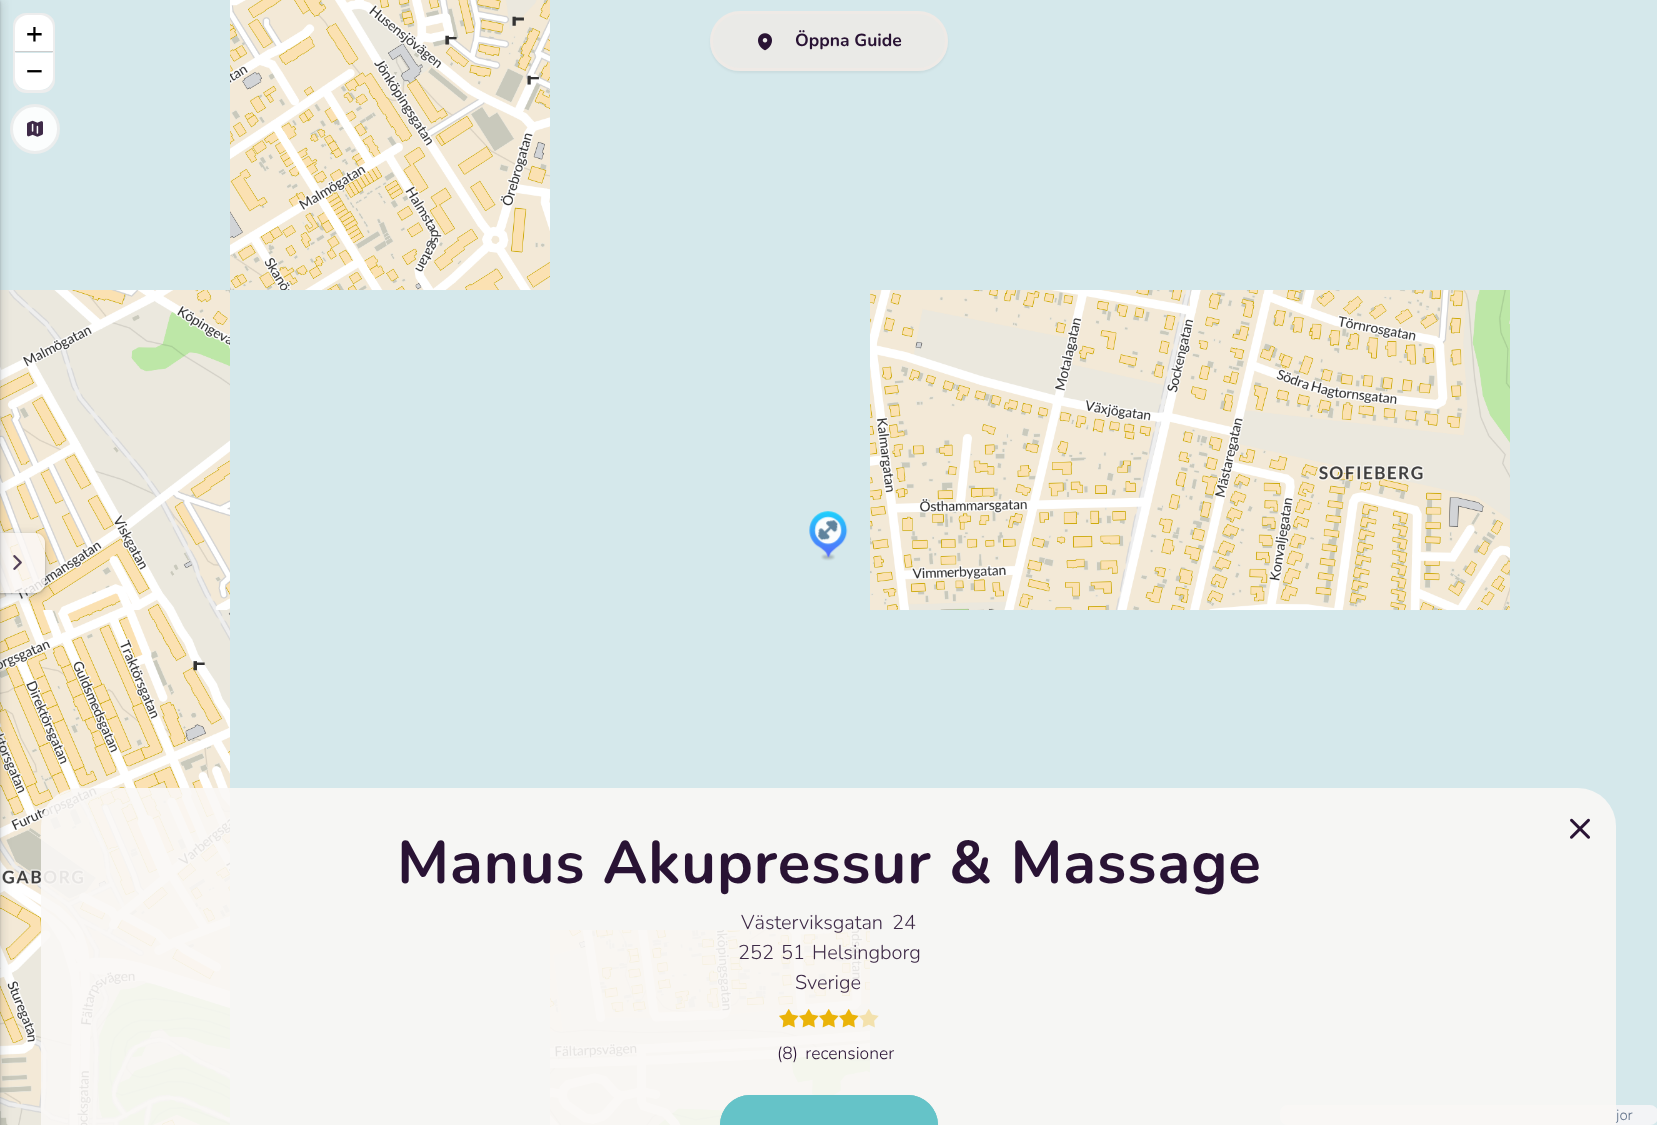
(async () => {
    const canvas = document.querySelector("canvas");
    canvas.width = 1657;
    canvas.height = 1125;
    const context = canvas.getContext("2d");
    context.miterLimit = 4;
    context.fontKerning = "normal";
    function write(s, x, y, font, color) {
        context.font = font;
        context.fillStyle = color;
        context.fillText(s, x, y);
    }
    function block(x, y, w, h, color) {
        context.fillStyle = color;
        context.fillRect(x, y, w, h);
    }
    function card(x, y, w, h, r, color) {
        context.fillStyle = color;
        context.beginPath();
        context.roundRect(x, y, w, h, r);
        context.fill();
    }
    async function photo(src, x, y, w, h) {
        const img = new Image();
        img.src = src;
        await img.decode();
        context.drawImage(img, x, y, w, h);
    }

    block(0, 0, 1657, 1125, "rgb(213, 232, 235)");
    await photo("media/3.png", 0, 290, 230, 320);
    await photo("media/6.png", 0, 610, 230, 320);
    context.save();
    context.beginPath();
    context.moveTo(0, 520);
    context.lineTo(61, 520);
    context.lineTo(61, 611);
    context.lineTo(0, 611);
    context.closePath();
    context.moveTo(-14, 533);
    context.lineTo(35, 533);
    context.bezierCurveTo(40.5, 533, 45, 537.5, 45, 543);
    context.lineTo(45, 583);
    context.bezierCurveTo(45, 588.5, 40.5, 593, 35, 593);
    context.lineTo(-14, 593);
    context.closePath();
    context.clip("evenodd");
    context.fillStyle = "rgba(60, 64, 67, 0.15)";
    context.filter = "blur(4px)";
    context.beginPath();
    context.roundRect(-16, 533, 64, 65, 13);
    context.fill();
    context.filter = "none";
    context.restore();
    context.save();
    context.beginPath();
    context.moveTo(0, 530);
    context.lineTo(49, 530);
    context.lineTo(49, 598);
    context.lineTo(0, 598);
    context.closePath();
    context.moveTo(-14, 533);
    context.lineTo(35, 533);
    context.bezierCurveTo(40.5, 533, 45, 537.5, 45, 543);
    context.lineTo(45, 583);
    context.bezierCurveTo(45, 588.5, 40.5, 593, 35, 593);
    context.lineTo(-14, 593);
    context.closePath();
    context.clip("evenodd");
    context.fillStyle = "rgba(60, 64, 67, 0.3)";
    context.filter = "blur(1px)";
    context.beginPath();
    context.roundRect(-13, 534, 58, 60, 10);
    context.fill();
    context.filter = "none";
    context.restore();
    context.fillStyle = "rgba(250, 247, 245, 0.85)";
    context.beginPath();
    context.moveTo(-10, 533);
    context.lineTo(35, 533);
    context.bezierCurveTo(40.5, 533, 45, 537.5, 45, 543);
    context.lineTo(45, 583);
    context.bezierCurveTo(45, 588.5, 40.5, 593, 35, 593);
    context.lineTo(-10, 593);
    context.closePath();
    context.fill();
    await photo("media/1.png", 13, 555, 9, 15);
    await photo("media/7.png", 0, 930, 230, 195);
    context.beginPath();
    context.roundRect(14.5, 14.5, 39, 77, 11.5);
    context.strokeStyle = "rgb(237, 237, 237)";
    context.lineWidth = 3;
    context.stroke();
    context.fillStyle = "rgb(255, 255, 255)";
    context.beginPath();
    context.roundRect(15, 15, 38, 36, [13, 13, 0, 0]);
    context.fill();
    block(15, 51, 38, 1, "rgb(204, 204, 204)");
    context.fillStyle = "rgb(255, 255, 255)";
    context.beginPath();
    context.roundRect(15, 53, 38, 37, [0, 0, 13, 13]);
    context.fill();
    context.fillStyle = "rgb(251, 253, 253)";
    context.beginPath();
    context.arc(35, 129, 23.5, 0, Math.PI * 2);
    context.fill();
    context.strokeStyle = "rgb(235, 237, 237)";
    context.stroke();
    context.fillStyle = "rgba(60, 64, 67, 0.15)";
    context.filter = "blur(4px)";
    context.beginPath();
    context.rect(-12, 0, 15, 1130);
    context.fill();
    context.filter = "none";
    context.fillStyle = "rgba(60, 64, 67, 0.3)";
    context.filter = "blur(1px)";
    context.beginPath();
    context.rect(-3, 1, 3, 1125);
    context.fill();
    context.filter = "none";
    await photo("media/2.png", 230, 0, 320, 290);
    await photo("media/4.png", 870, 290, 320, 320);
    await photo("media/5.png", 1190, 290, 320, 320);
    await photo("media/8.png", 550, 930, 320, 195);
    await photo("media/9.png", 809, 511, 39, 50);
    write("+", 26, 43, "28px DejaVu Sans Mono", "rgb(0, 0, 0)");
    write("−", 26, 80, "28px DejaVu Sans Mono", "rgb(0, 0, 0)");
    await photo("media/10.png", 27, 120, 16, 17);
    card(1280, 1105, 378, 20, 8, "rgb(243, 244, 246)");
    context.wordSpacing = "2px";
    write("jor", 1616, 1120, "300 15px Nunito", "rgb(100, 116, 139)");
    context.fillStyle = "rgba(250, 247, 245, 0.9)";
    context.beginPath();
    context.roundRect(41, 788, 1575, 337, [38, 38, 0, 0]);
    context.fill();
    await photo("media/11.png", 1570, 818, 20, 21);
    context.letterSpacing = "0.9px";
    context.wordSpacing = "0px";
    write("Manus Akupressur & Massage", 397, 883, "bold 60px Nunito", "rgb(41, 19, 52)");
    context.letterSpacing = "0px";
    context.wordSpacing = "4px";
    write("Västerviksgatan 24", 741, 929, "300 20px Nunito", "rgb(62, 42, 71)");
    context.wordSpacing = "2px";
    write("252 51 Helsingborg", 738, 959, "300 20px Nunito", "rgb(62, 42, 71)");
    context.wordSpacing = "0px";
    write("Sverige", 795, 989, "300 20px Nunito", "rgb(62, 42, 71)");
    await photo("media/12.png", 779, 1009, 20, 19);
    await photo("media/13.png", 799, 1009, 20, 19);
    await photo("media/14.png", 819, 1009, 20, 19);
    await photo("media/15.png", 839, 1009, 20, 19);
    await photo("media/16.png", 859, 1009, 20, 19);
    context.wordSpacing = "3px";
    write("(8) recensioner", 777, 1059, "300 17.5px Nunito", "rgb(41, 19, 52)");
    context.fillStyle = "rgba(0, 0, 0, 0.05)";
    context.filter = "blur(1px)";
    context.beginPath();
    context.roundRect(720, 1096, 218, 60, 30);
    context.fill();
    context.filter = "none";
    context.fillStyle = "rgb(101, 195, 200)";
    context.beginPath();
    context.roundRect(720, 1095, 218, 30, [30, 30, 0, 0]);
    context.fill();
    context.beginPath();
    context.roundRect(720.5, 1095.5, 217, 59, 29.5);
    context.strokeStyle = "rgb(101, 195, 200)";
    context.lineWidth = 1;
    context.stroke();
    context.save();
    context.beginPath();
    context.moveTo(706, 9);
    context.lineTo(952, 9);
    context.lineTo(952, 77);
    context.lineTo(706, 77);
    context.closePath();
    context.moveTo(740, 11);
    context.lineTo(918, 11);
    context.bezierCurveTo(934.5, 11, 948, 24.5, 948, 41);
    context.bezierCurveTo(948, 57.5, 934.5, 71, 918, 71);
    context.lineTo(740, 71);
    context.bezierCurveTo(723.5, 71, 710, 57.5, 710, 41);
    context.bezierCurveTo(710, 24.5, 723.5, 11, 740, 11);
    context.closePath();
    context.clip("evenodd");
    context.fillStyle = "rgba(0, 0, 0, 0.05)";
    context.filter = "blur(1px)";
    context.beginPath();
    context.roundRect(710, 13, 238, 60, 30);
    context.fill();
    context.filter = "none";
    context.restore();
    context.fillStyle = "rgba(239, 234, 230, 0.8)";
    context.beginPath();
    context.roundRect(711.5, 12.5, 235, 57, 28.5);
    context.fill();
    context.strokeStyle = "rgb(239, 234, 230)";
    context.lineWidth = 3;
    context.stroke();
    await photo("media/17.png", 758, 33, 14, 18);
    context.wordSpacing = "0px";
    write("Öppna Guide", 795, 46, "bold 17.5px Nunito", "rgb(41, 19, 52)");
})();
